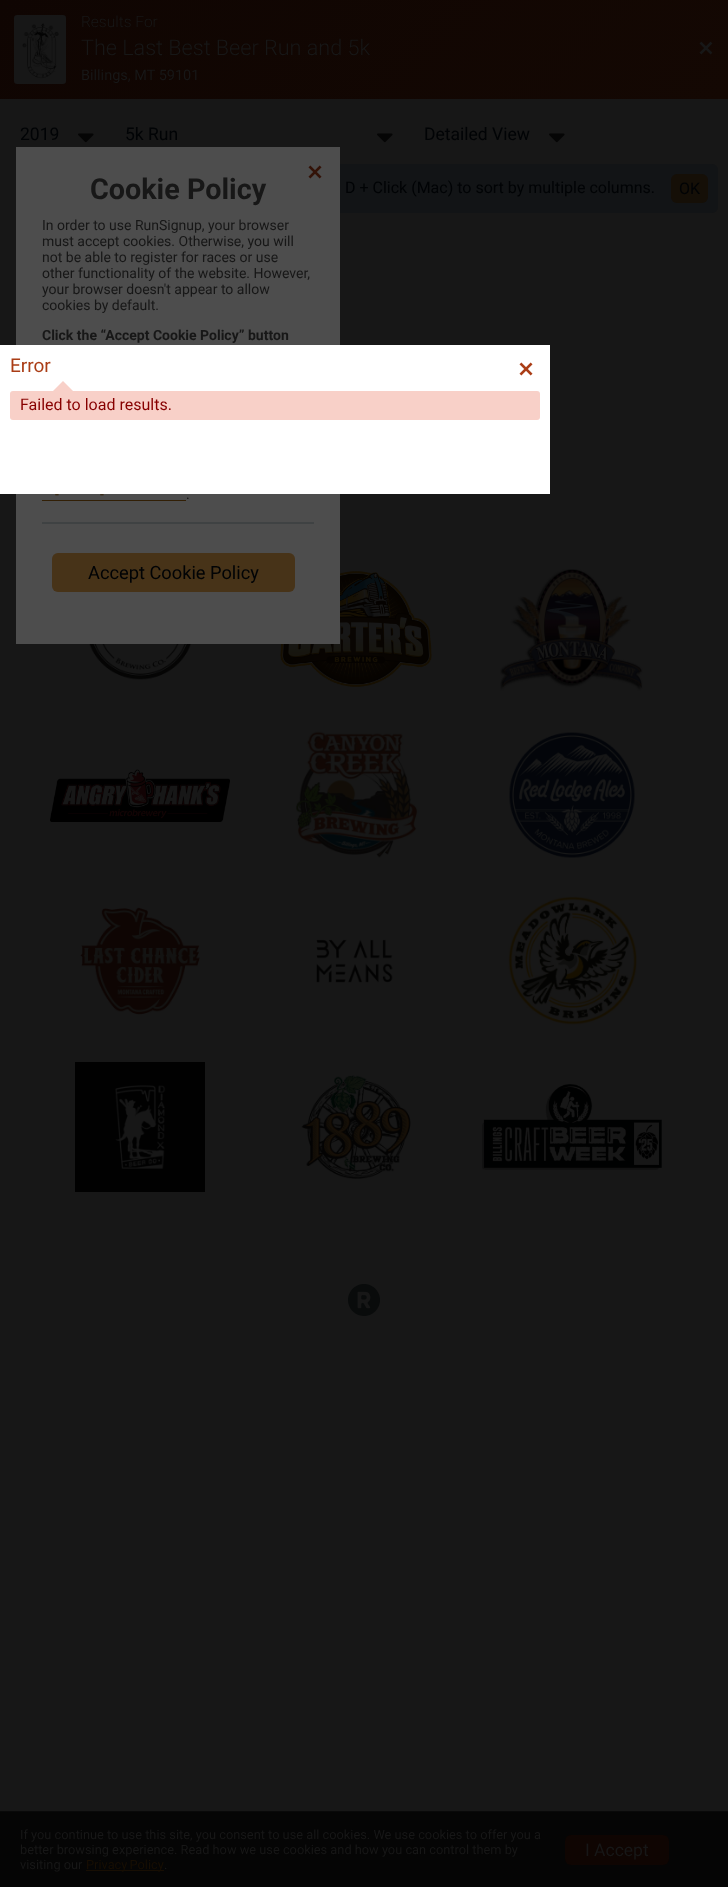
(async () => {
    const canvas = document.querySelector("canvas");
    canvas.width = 728;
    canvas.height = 1887;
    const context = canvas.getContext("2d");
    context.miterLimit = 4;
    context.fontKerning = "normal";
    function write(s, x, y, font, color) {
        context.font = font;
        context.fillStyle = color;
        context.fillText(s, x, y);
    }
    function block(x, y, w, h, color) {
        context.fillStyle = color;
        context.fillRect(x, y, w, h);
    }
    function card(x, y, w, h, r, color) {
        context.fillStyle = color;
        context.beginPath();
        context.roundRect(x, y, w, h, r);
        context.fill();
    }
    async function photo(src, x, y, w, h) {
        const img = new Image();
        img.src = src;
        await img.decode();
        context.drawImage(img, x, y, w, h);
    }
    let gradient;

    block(0, 0, 728, 1887, "rgb(23, 23, 23)");
    gradient = context.createLinearGradient(571, 256, 157, -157);
    gradient.addColorStop(0, "rgb(20, 8, 3)");
    gradient.addColorStop(1, "rgb(15, 5, 2)");
    context.fillStyle = gradient;
    context.fillRect(0, 0, 728, 99);
    card(14, 15, 52, 69, 3, "rgb(23, 23, 23)");
    await photo("media/1.png", 22, 23, 37, 56);
    write("Results For", 81, 27, "300 15.5px Roboto", "rgb(23, 23, 23)");
    write("The Last Best Beer Run and 5k", 81, 55, "300 21.6px Roboto", "rgb(23, 23, 23)");
    write("Billings, MT 59101", 81, 80, "14.5px Roboto", "rgb(23, 23, 23)");
    await photo("media/2.png", 699, 41, 14, 14);
    write("2019", 20, 140, "17.5px Roboto", "rgb(1, 3, 5)");
    await photo("media/3.png", 78, 133, 16, 10);
    write("5k Run", 125, 140, "17.5px Roboto", "rgb(1, 3, 5)");
    await photo("media/3.png", 377, 133, 16, 10);
    write("Detailed View", 424, 140, "17.5px Roboto", "rgb(1, 3, 5)");
    await photo("media/3.png", 549, 133, 16, 10);
    card(100, 164, 618, 49, 6, "rgb(18, 20, 22)");
    write("D + Click (Mac) to sort by multiple columns.", 345, 193, "16px Roboto", "rgb(1, 3, 5)");
    card(671, 174, 37, 29, 6, "rgb(21, 15, 7)");
    write("OK", 679, 194, "16px Roboto", "rgb(1, 3, 5)");
    await photo("media/4.png", 82, 644, 116, 36);
    await photo("media/5.png", 280, 571, 152, 116);
    await photo("media/6.png", 500, 569, 143, 122);
    await photo("media/7.png", 50, 769, 180, 53);
    await photo("media/8.png", 295, 730, 125, 128);
    await photo("media/9.png", 509, 732, 126, 126);
    await photo("media/10.png", 80, 907, 120, 108);
    await photo("media/11.png", 316, 939, 77, 44);
    await photo("media/12.png", 508, 896, 129, 130);
    await photo("media/13.png", 75, 1062, 130, 130);
    await photo("media/14.png", 301, 1075, 110, 104);
    await photo("media/15.png", 482, 1084, 180, 86);
    await photo("media/16.png", 348, 1284, 32, 32);
    context.strokeStyle = "rgb(77, 77, 77)";
    context.strokeRect(16.5, 147.5, 323, 496);
    block(17, 148, 322, 495, "rgb(77, 77, 77)");
    await photo("media/17.png", 308, 165, 14, 14);
    write("Cookie Policy", 90, 199, "bold 28.75px Roboto", "rgb(23, 23, 23)");
    write("In order to use RunSignup, your browser", 42, 230, "14px Roboto", "rgb(23, 23, 23)");
    write("must accept cookies. Otherwise, you will", 42, 246, "14px Roboto", "rgb(23, 23, 23)");
    write("not be able to register for races or use", 42, 262, "14px Roboto", "rgb(23, 23, 23)");
    write("other functionality of the website. However,", 42, 278, "14px Roboto", "rgb(23, 23, 23)");
    write("your browser doesn't appear to allow", 42, 294, "14px Roboto", "rgb(23, 23, 23)");
    write("cookies by default.", 42, 310, "14px Roboto", "rgb(23, 23, 23)");
    write("Click the “Accept Cookie Policy” button", 42, 340, "bold 14px Roboto", "rgb(23, 23, 23)");
    write("-", 55, 499, "14px Roboto", "rgb(50, 31, 5)");
    block(42, 500, 144, 1, "rgb(50, 31, 5)");
    write("-", 100, 499, "14px Roboto", "rgb(50, 31, 5)");
    write(".", 186, 499, "14px Roboto", "rgb(23, 23, 23)");
    block(42, 522, 272, 2, "rgb(63, 66, 67)");
    card(52, 553, 243, 39, 6, "rgb(71, 51, 24)");
    write("Accept Cookie Policy", 88, 579, "18.25px Roboto", "rgb(1, 3, 5)");
    block(0, 345, 550, 149, "rgb(255, 255, 255)");
    write("Error", 10, 372, "19px Roboto", "rgb(170, 61, 22)");
    await photo("media/18.png", 519, 362, 14, 14);
    card(10, 391, 530, 29, 3, "rgb(248, 208, 200)");
    context.beginPath();
    context.moveTo(73, 391);
    context.lineTo(53, 391);
    context.lineTo(63, 381);
    context.closePath();
    context.fill();
    write("Failed to load results.", 20, 410, "16px Roboto", "rgb(135, 0, 0)");
    block(0, 1812, 728, 75, "rgb(5, 5, 5)");
    block(0, 1811, 728, 1, "rgb(9, 9, 9)");
    write("If you continue to use this site, you consent to use all cookies. We use cookies to offer you a", 20, 1839, "12.8px Roboto", "rgb(23, 23, 23)");
    write("better browsing experience. Read how we use cookies and how you can control them by", 20, 1854, "12.8px Roboto", "rgb(23, 23, 23)");
    write("visiting our", 20, 1869, "12.8px Roboto", "rgb(23, 23, 23)");
    block(86, 1870, 78, 1, "rgb(23, 14, 3)");
    context.wordSpacing = "-1px";
    write("Privacy Policy", 86, 1869, "12.8px Roboto", "rgb(23, 14, 3)");
    context.wordSpacing = "0px";
    write(".", 164, 1869, "12.8px Roboto", "rgb(23, 23, 23)");
    card(565, 1835, 104, 30, 6, "rgb(15, 5, 2)");
    write("I Accept", 585, 1856, "17.5px Roboto", "rgb(23, 23, 23)");
})();
